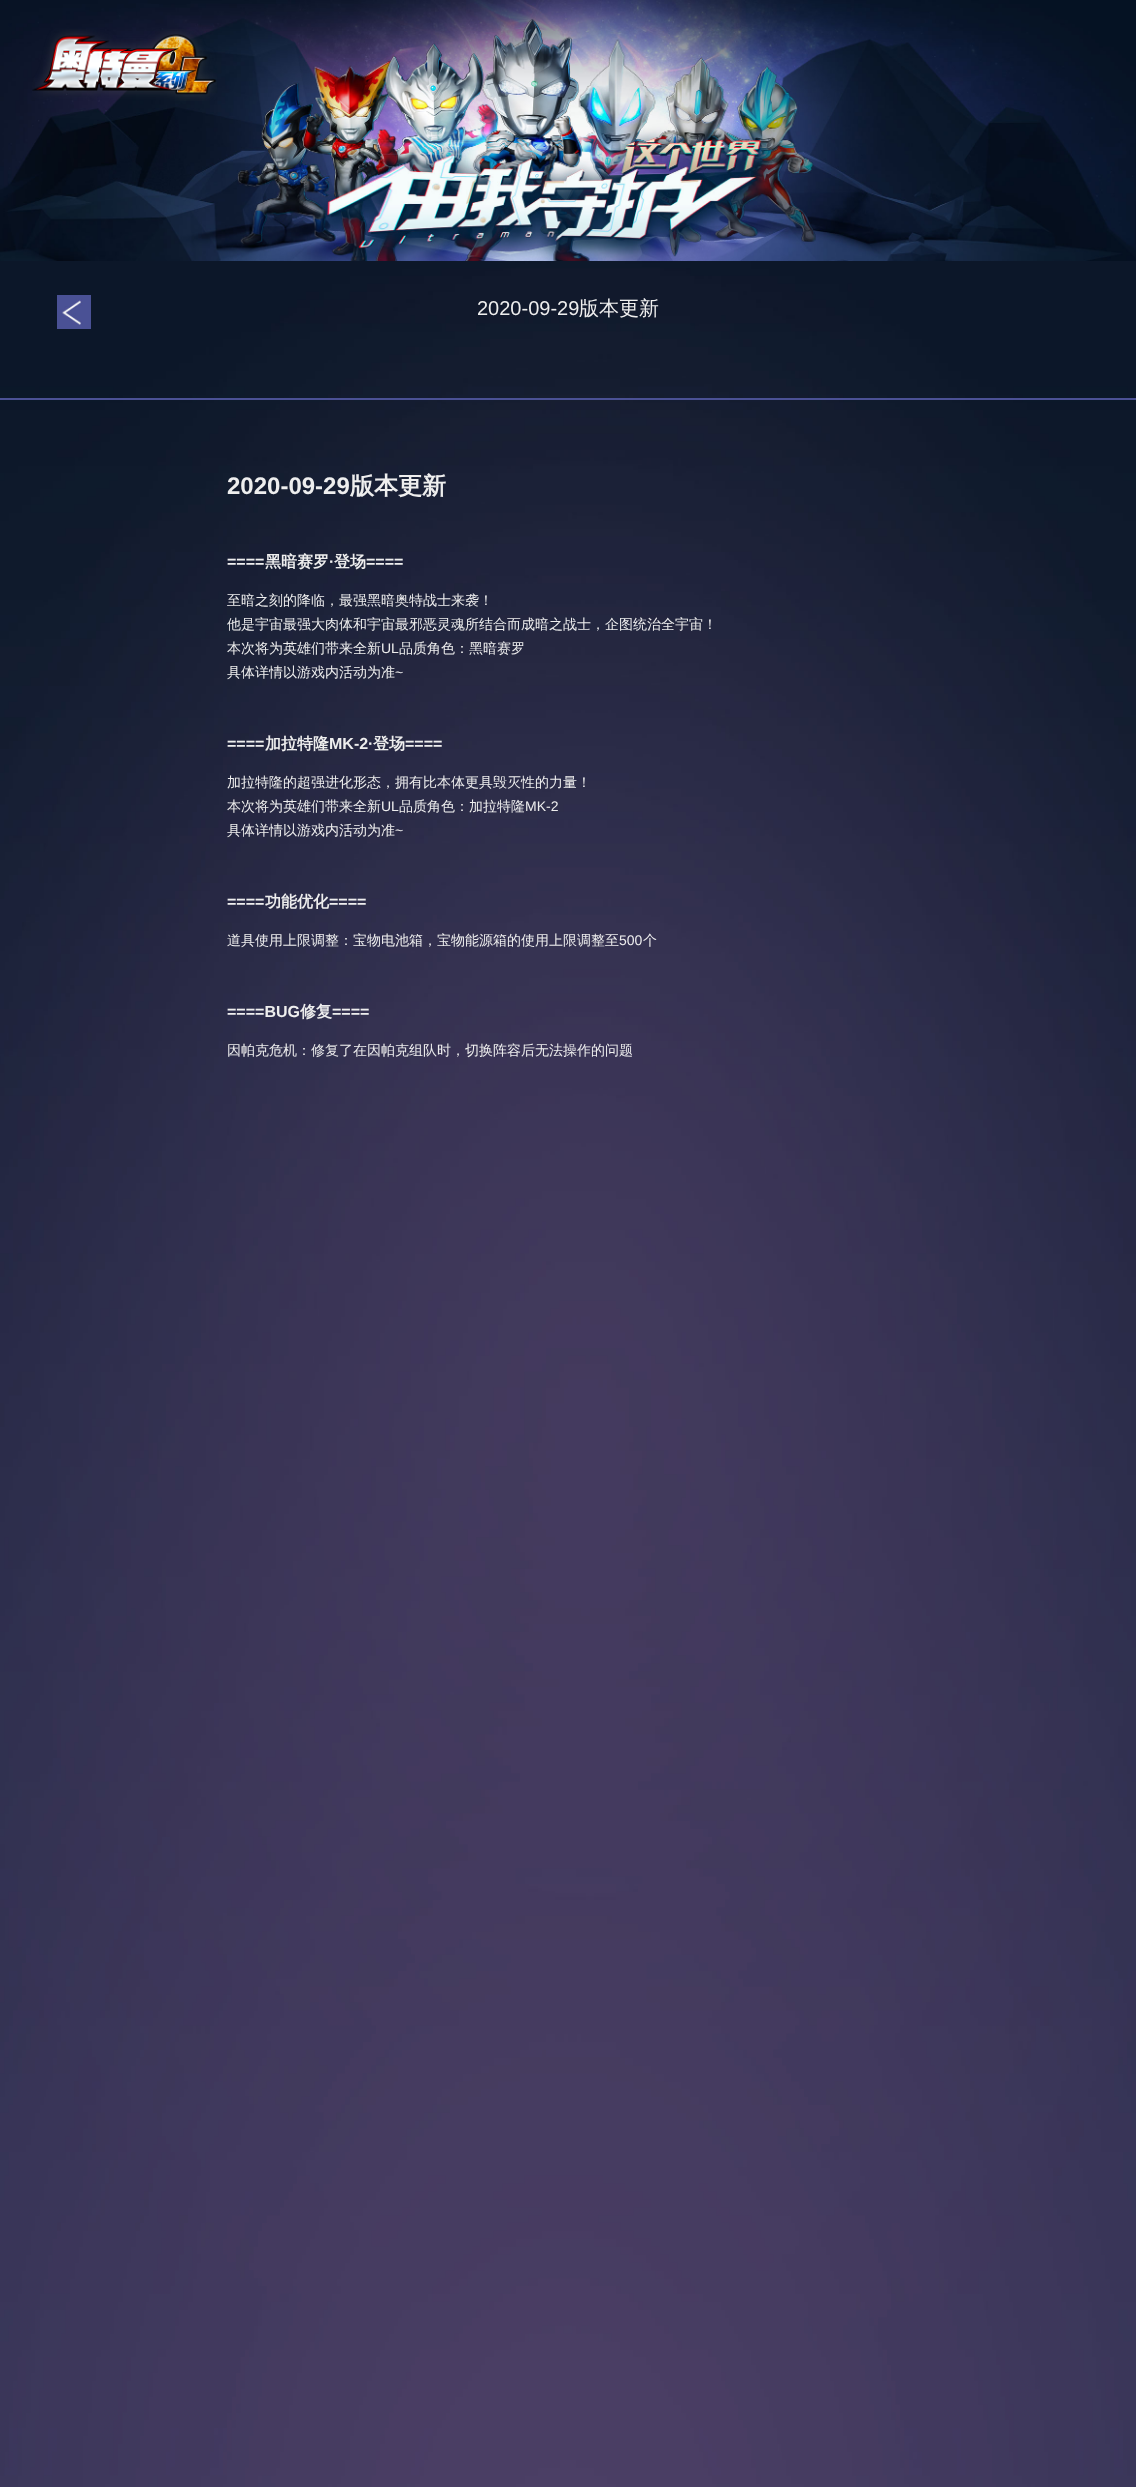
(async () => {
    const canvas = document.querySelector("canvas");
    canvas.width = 1136;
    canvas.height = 2487;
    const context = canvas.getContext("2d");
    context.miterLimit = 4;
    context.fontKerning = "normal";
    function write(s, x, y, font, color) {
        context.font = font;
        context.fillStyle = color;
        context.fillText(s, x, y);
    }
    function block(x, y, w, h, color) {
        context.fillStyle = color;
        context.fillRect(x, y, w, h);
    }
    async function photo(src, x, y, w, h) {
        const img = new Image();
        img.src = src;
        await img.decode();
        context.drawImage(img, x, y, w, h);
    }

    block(0, 0, 1136, 2487, "rgb(255, 255, 255)");
    await photo("media/1.png", 0, 261, 1136, 2226);
    await photo("media/2.png", 0, 0, 1136, 261);
    await photo("media/3.png", 32, 29, 185, 72);
    block(0, 398, 1136, 2, "rgb(75, 81, 149)");
    await photo("media/4.png", 57, 295, 34, 34);
    write("2020-09-29", 477, 315, "20px Liberation Sans", "rgb(238, 238, 238)");
    write("版本更新", 579, 315, "500 20px WenQuanYi Zen Hei", "rgb(238, 238, 238)");
    write("2020-09-29", 227, 494, "bold 24px Liberation Sans", "rgb(238, 238, 238)");
    write("版本更新", 350, 494, "bold 24px WenQuanYi Zen Hei", "rgb(238, 238, 238)");
    write("====", 227, 567, "bold 16px Liberation Sans", "rgb(238, 238, 238)");
    write("黑暗赛罗", 265, 567, "bold 16px WenQuanYi Zen Hei", "rgb(238, 238, 238)");
    write("·", 329, 567, "bold 16px Liberation Sans", "rgb(238, 238, 238)");
    write("登场", 334, 567, "bold 16px WenQuanYi Zen Hei", "rgb(238, 238, 238)");
    write("====", 366, 567, "bold 16px Liberation Sans", "rgb(238, 238, 238)");
    write("至暗之刻的降临，最强黑暗奥特战士来袭！", 227, 605, "500 14px WenQuanYi Zen Hei", "rgb(238, 238, 238)");
    write("他是宇宙最强大肉体和宇宙最邪恶灵魂所结合而成暗之战士，企图统治全宇宙！", 227, 629, "500 14px WenQuanYi Zen Hei", "rgb(238, 238, 238)");
    write("本次将为英雄们带来全新", 227, 653, "500 14px WenQuanYi Zen Hei", "rgb(238, 238, 238)");
    write("UL", 381, 653, "14px Liberation Sans", "rgb(238, 238, 238)");
    write("品质角色：黑暗赛罗", 399, 653, "500 14px WenQuanYi Zen Hei", "rgb(238, 238, 238)");
    write("具体详情以游戏内活动为准", 227, 677, "500 14px WenQuanYi Zen Hei", "rgb(238, 238, 238)");
    write("~", 395, 677, "14px Liberation Sans", "rgb(238, 238, 238)");
    write("====", 227, 749, "bold 16px Liberation Sans", "rgb(238, 238, 238)");
    write("加拉特隆", 265, 749, "bold 16px WenQuanYi Zen Hei", "rgb(238, 238, 238)");
    write("MK-2·", 329, 749, "bold 16px Liberation Sans", "rgb(238, 238, 238)");
    write("登场", 373, 749, "bold 16px WenQuanYi Zen Hei", "rgb(238, 238, 238)");
    write("====", 405, 749, "bold 16px Liberation Sans", "rgb(238, 238, 238)");
    write("加拉特隆的超强进化形态，拥有比本体更具毁灭性的力量！", 227, 787, "500 14px WenQuanYi Zen Hei", "rgb(238, 238, 238)");
    write("本次将为英雄们带来全新", 227, 811, "500 14px WenQuanYi Zen Hei", "rgb(238, 238, 238)");
    write("UL", 381, 811, "14px Liberation Sans", "rgb(238, 238, 238)");
    write("品质角色：加拉特隆", 399, 811, "500 14px WenQuanYi Zen Hei", "rgb(238, 238, 238)");
    write("MK-2", 525, 811, "14px Liberation Sans", "rgb(238, 238, 238)");
    write("具体详情以游戏内活动为准", 227, 835, "500 14px WenQuanYi Zen Hei", "rgb(238, 238, 238)");
    write("~", 395, 835, "14px Liberation Sans", "rgb(238, 238, 238)");
    write("====", 227, 907, "bold 16px Liberation Sans", "rgb(238, 238, 238)");
    write("功能优化", 265, 907, "bold 16px WenQuanYi Zen Hei", "rgb(238, 238, 238)");
    write("====", 329, 907, "bold 16px Liberation Sans", "rgb(238, 238, 238)");
    write("道具使用上限调整：宝物电池箱，宝物能源箱的使用上限调整至", 227, 945, "500 14px WenQuanYi Zen Hei", "rgb(238, 238, 238)");
    write("500", 619, 945, "14px Liberation Sans", "rgb(238, 238, 238)");
    write("个", 643, 945, "500 14px WenQuanYi Zen Hei", "rgb(238, 238, 238)");
    write("====BUG", 227, 1017, "bold 16px Liberation Sans", "rgb(238, 238, 238)");
    write("修复", 300, 1017, "bold 16px WenQuanYi Zen Hei", "rgb(238, 238, 238)");
    write("====", 332, 1017, "bold 16px Liberation Sans", "rgb(238, 238, 238)");
    write("因帕克危机：修复了在因帕克组队时，切换阵容后无法操作的问题", 227, 1055, "500 14px WenQuanYi Zen Hei", "rgb(238, 238, 238)");
})();
